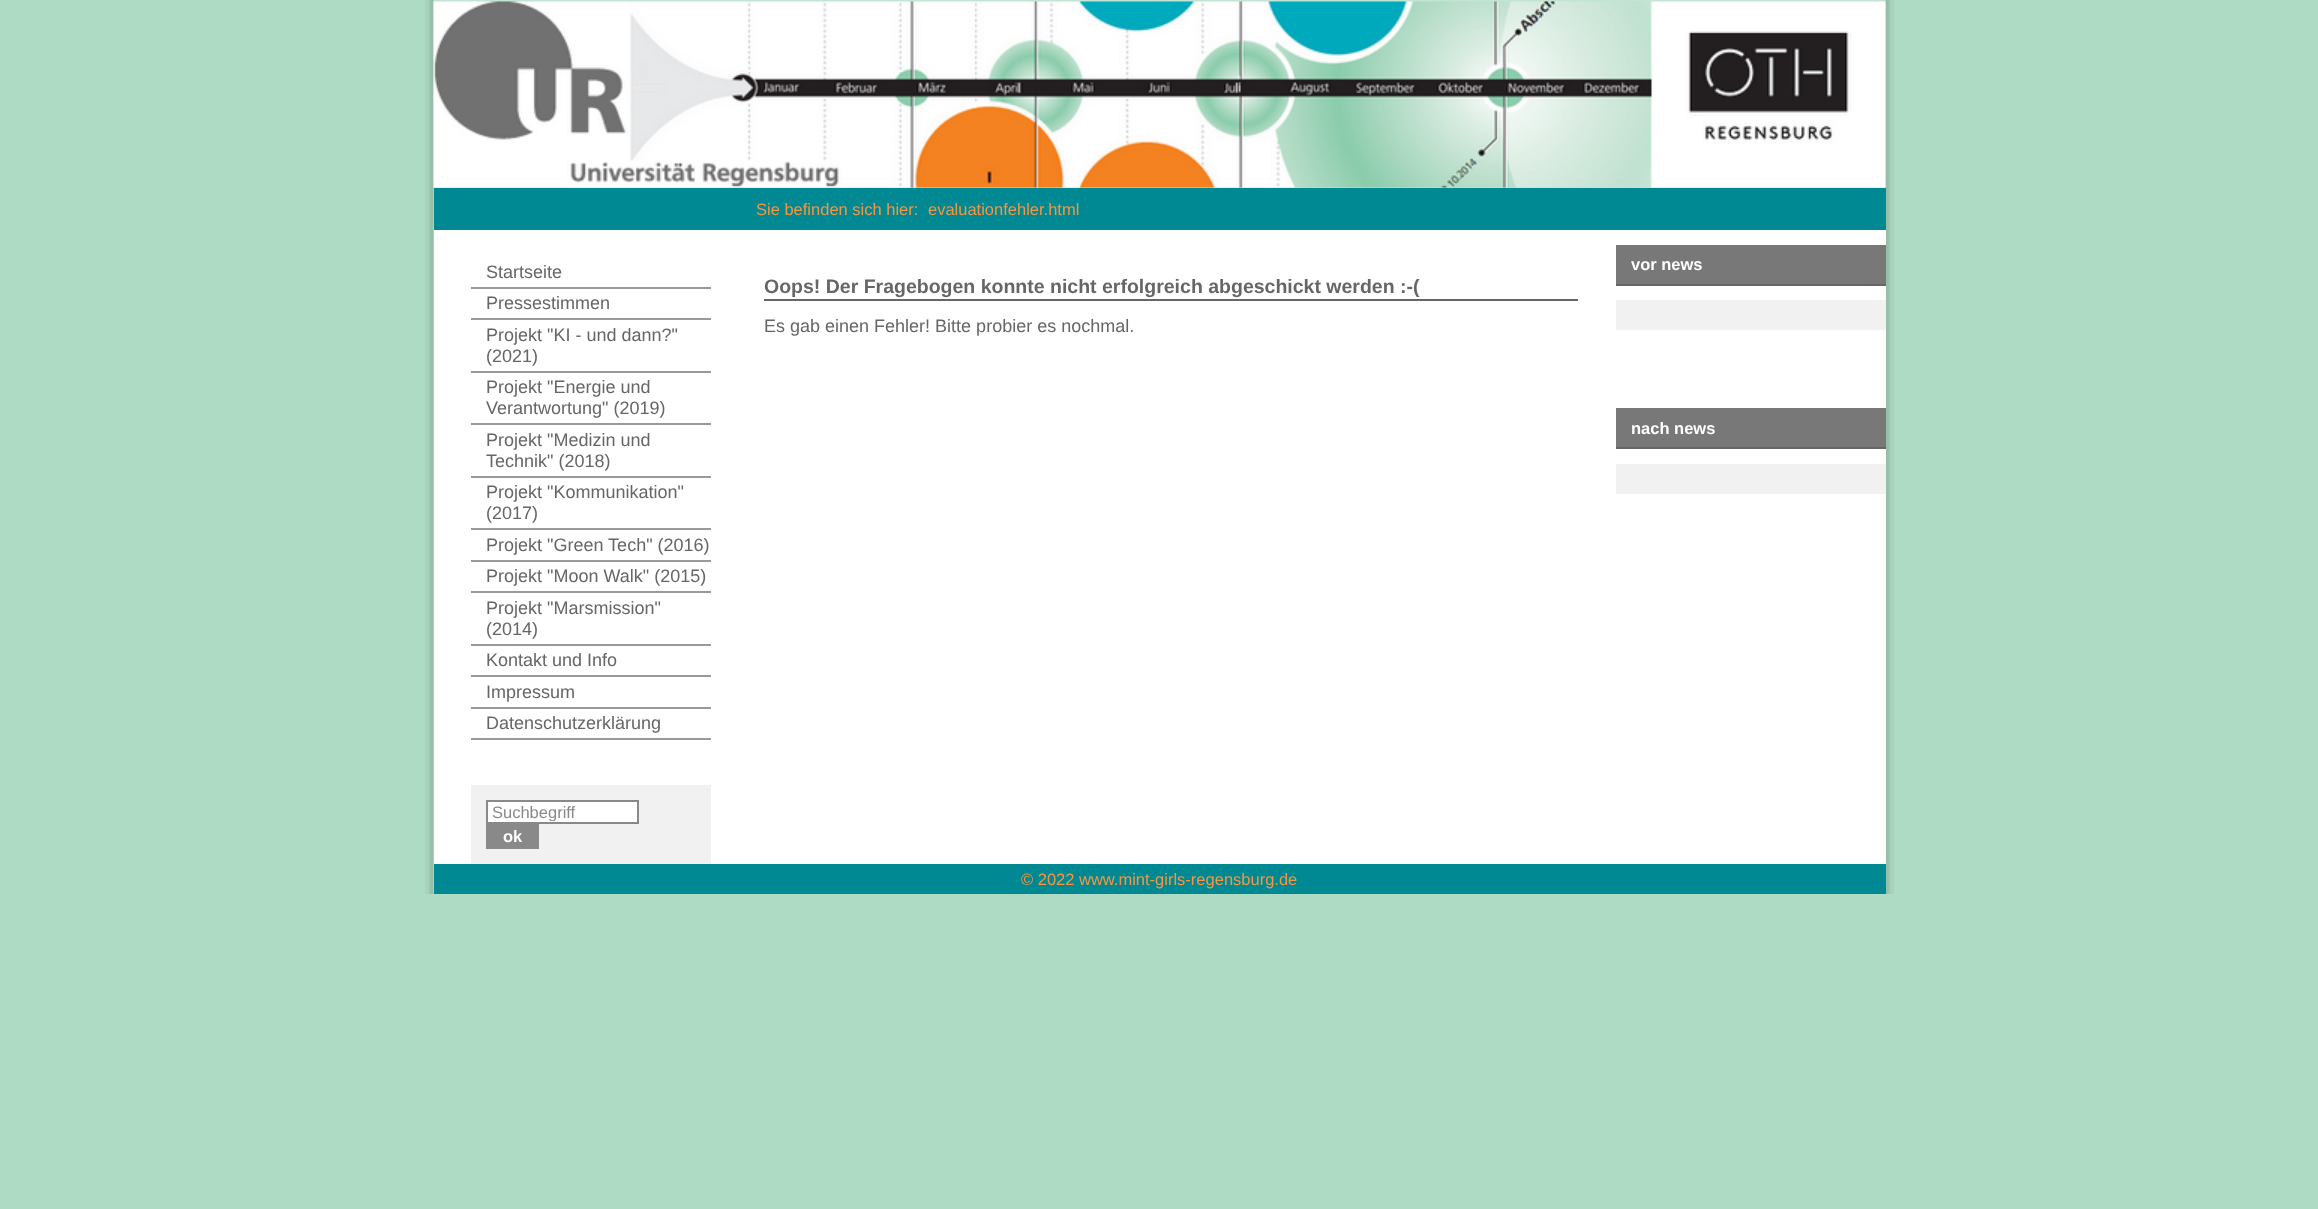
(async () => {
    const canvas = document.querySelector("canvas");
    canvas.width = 2318;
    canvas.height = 1209;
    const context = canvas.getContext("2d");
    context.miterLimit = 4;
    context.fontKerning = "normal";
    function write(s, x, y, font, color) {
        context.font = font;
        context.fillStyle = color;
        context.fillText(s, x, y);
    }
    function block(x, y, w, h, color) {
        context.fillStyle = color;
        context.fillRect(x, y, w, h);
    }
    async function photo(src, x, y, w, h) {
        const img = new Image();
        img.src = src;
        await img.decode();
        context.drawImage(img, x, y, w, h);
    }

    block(0, 0, 2318, 1209, "rgb(174, 219, 195)");
    await photo("media/1.png", 425, 0, 1469, 894);
    await photo("media/2.png", 433, 1, 1453, 187);
    block(434, 188, 1452, 42, "rgb(0, 137, 147)");
    write("Sie befinden sich hier:", 756, 215, "16.5px Liberation Sans", "rgb(246, 150, 67)");
    write("evaluationfehler.html", 928, 215, "16.5px Liberation Sans", "rgb(246, 150, 67)");
    block(434, 230, 1452, 634, "rgb(255, 255, 255)");
    block(471, 287, 240, 2, "rgb(153, 153, 153)");
    write("Startseite", 486, 278, "18px Liberation Sans", "rgb(102, 102, 102)");
    block(471, 318, 240, 2, "rgb(153, 153, 153)");
    write("Pressestimmen", 486, 309, "18px Liberation Sans", "rgb(102, 102, 102)");
    block(471, 371, 240, 2, "rgb(153, 153, 153)");
    write("Projekt \"KI - und dann?\"", 486, 341, "18px Liberation Sans", "rgb(102, 102, 102)");
    write("(2021)", 486, 362, "18px Liberation Sans", "rgb(102, 102, 102)");
    block(471, 423, 240, 2, "rgb(153, 153, 153)");
    write("Projekt \"Energie und", 486, 393, "18px Liberation Sans", "rgb(102, 102, 102)");
    write("Verantwortung\" (2019)", 486, 414, "18px Liberation Sans", "rgb(102, 102, 102)");
    block(471, 476, 240, 2, "rgb(153, 153, 153)");
    write("Projekt \"Medizin und", 486, 446, "18px Liberation Sans", "rgb(102, 102, 102)");
    write("Technik\" (2018)", 486, 467, "18px Liberation Sans", "rgb(102, 102, 102)");
    block(471, 528, 240, 2, "rgb(153, 153, 153)");
    write("Projekt \"Kommunikation\"", 486, 498, "18px Liberation Sans", "rgb(102, 102, 102)");
    write("(2017)", 486, 519, "18px Liberation Sans", "rgb(102, 102, 102)");
    block(471, 560, 240, 2, "rgb(153, 153, 153)");
    write("Projekt \"Green Tech\" (2016)", 486, 551, "18px Liberation Sans", "rgb(102, 102, 102)");
    block(471, 591, 240, 2, "rgb(153, 153, 153)");
    write("Projekt \"Moon Walk\" (2015)", 486, 582, "18px Liberation Sans", "rgb(102, 102, 102)");
    block(471, 644, 240, 2, "rgb(153, 153, 153)");
    write("Projekt \"Marsmission\"", 486, 614, "18px Liberation Sans", "rgb(102, 102, 102)");
    write("(2014)", 486, 635, "18px Liberation Sans", "rgb(102, 102, 102)");
    block(471, 675, 240, 2, "rgb(153, 153, 153)");
    write("Kontakt und Info", 486, 666, "18px Liberation Sans", "rgb(102, 102, 102)");
    block(471, 707, 240, 2, "rgb(153, 153, 153)");
    write("Impressum", 486, 698, "18px Liberation Sans", "rgb(102, 102, 102)");
    block(471, 738, 240, 2, "rgb(153, 153, 153)");
    write("Datenschutzerklärung", 486, 729, "18px Liberation Sans", "rgb(102, 102, 102)");
    block(471, 785, 240, 79, "rgb(241, 241, 241)");
    context.fillStyle = "rgb(255, 255, 255)";
    context.beginPath();
    context.rect(487, 801, 151, 22);
    context.fill();
    context.strokeStyle = "rgb(137, 137, 137)";
    context.lineWidth = 2;
    context.stroke();
    context.save();
    context.beginPath();
    context.rect(492, 803, 143, 18);
    context.clip();
    write("Suchbegriff", 492, 818, "16.5px Liberation Sans", "rgb(137, 137, 137)");
    context.restore();
    block(486, 824, 53, 25, "rgb(137, 137, 137)");
    write("ok", 503, 842, "bold 16.5px Liberation Sans", "rgb(255, 255, 255)");
    block(764, 299, 814, 2, "rgb(102, 102, 102)");
    write("Oops! Der Fragebogen konnte nicht erfolgreich abgeschickt werden :-(", 764, 293, "bold 19.5px Liberation Sans", "rgb(102, 102, 102)");
    write("Es gab einen Fehler! Bitte probier es nochmal.", 764, 332, "18px Liberation Sans", "rgb(102, 102, 102)");
    block(1616, 245, 270, 39, "rgb(120, 120, 120)");
    block(1616, 284, 270, 2, "rgb(102, 102, 102)");
    write("vor news", 1631, 270, "bold 16.5px Liberation Sans", "rgb(255, 255, 255)");
    block(1616, 300, 270, 30, "rgb(241, 241, 241)");
    block(1616, 408, 270, 39, "rgb(120, 120, 120)");
    block(1616, 447, 270, 2, "rgb(102, 102, 102)");
    write("nach news", 1631, 434, "bold 16.5px Liberation Sans", "rgb(255, 255, 255)");
    block(1616, 464, 270, 30, "rgb(241, 241, 241)");
    block(434, 864, 1452, 30, "rgb(0, 137, 147)");
    write("© 2022 www.mint-girls-regensburg.de", 1021, 885, "16.5px Liberation Sans", "rgb(246, 150, 67)");
})();
